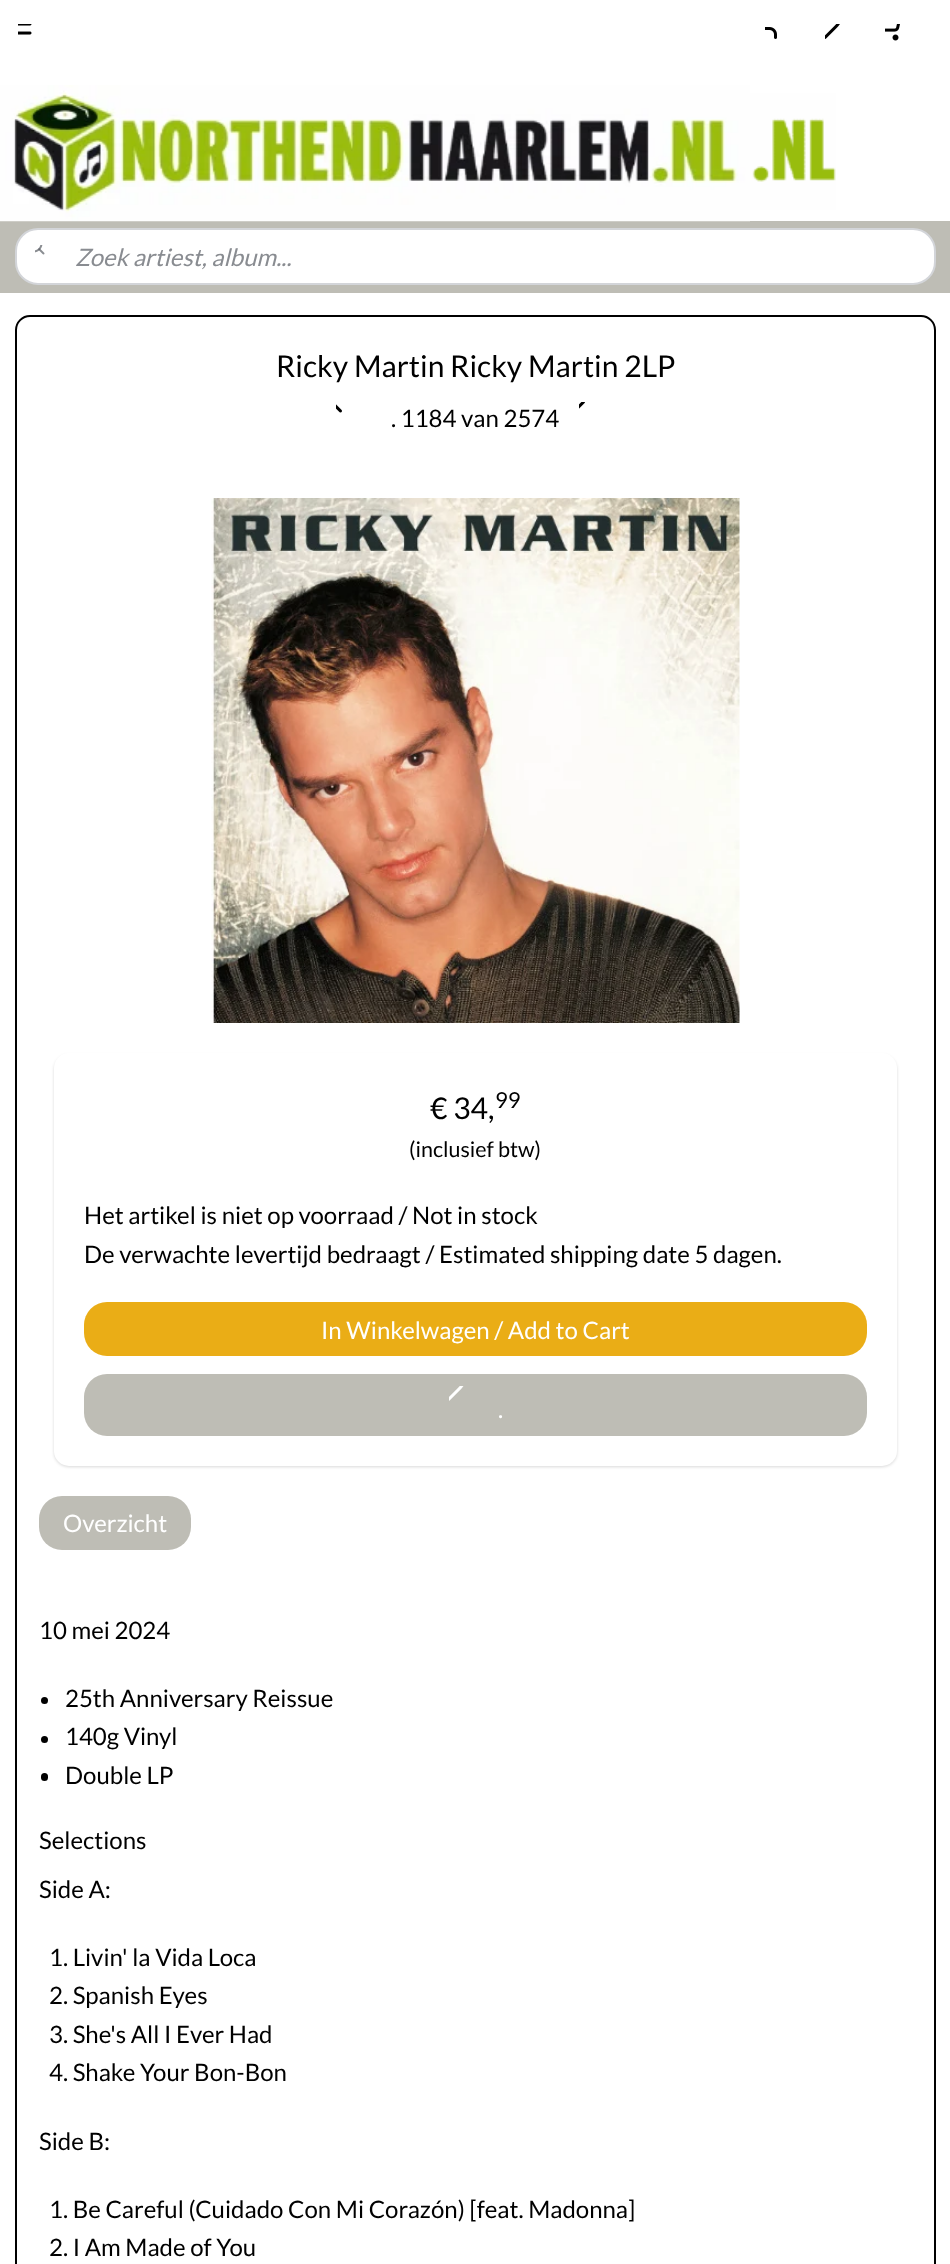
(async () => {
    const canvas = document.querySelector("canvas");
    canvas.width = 950;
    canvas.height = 2264;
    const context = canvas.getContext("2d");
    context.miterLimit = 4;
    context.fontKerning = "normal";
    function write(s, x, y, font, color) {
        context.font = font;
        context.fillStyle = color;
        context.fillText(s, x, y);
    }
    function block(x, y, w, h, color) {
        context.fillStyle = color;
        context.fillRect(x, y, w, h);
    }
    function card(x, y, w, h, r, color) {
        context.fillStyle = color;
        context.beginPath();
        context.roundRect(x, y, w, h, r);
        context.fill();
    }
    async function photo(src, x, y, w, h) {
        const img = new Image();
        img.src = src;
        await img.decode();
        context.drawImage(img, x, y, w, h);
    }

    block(0, 0, 950, 2264, "rgb(255, 255, 255)");
    await photo("media/1.png", 18, 24, 14, 11);
    await photo("media/2.png", 765, 27, 12, 12);
    await photo("media/3.png", 825, 24, 15, 15);
    await photo("media/4.png", 885, 24, 15, 17);
    block(0, 221, 950, 72, "rgb(190, 189, 181)");
    await photo("media/5.png", 0, 85, 750, 137);
    await photo("media/6.png", 750, 93, 86, 117);
    context.fillStyle = "rgb(255, 255, 255)";
    context.beginPath();
    context.roundRect(16, 229, 919, 55, 22);
    context.fill();
    context.strokeStyle = "rgb(211, 213, 217)";
    context.lineWidth = 2;
    context.stroke();
    await photo("media/7.png", 35, 245, 10, 10);
    write("Zoek artiest, album...", 75, 266, "italic 24px Lato", "rgb(137, 140, 145)");
    context.beginPath();
    context.roundRect(16, 316, 919, 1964, 14);
    context.strokeStyle = "rgb(0, 0, 0)";
    context.stroke();
    write("Ricky Martin Ricky Martin 2LP", 276, 377, "30px Lato", "rgb(0, 0, 0)");
    await photo("media/8.png", 336, 404, 6, 9);
    write(". 1184 van 2574", 391, 427, "24px Lato", "rgb(0, 0, 0)");
    await photo("media/9.png", 579, 402, 6, 7);
    await photo("media/10.png", 211, 498, 529, 525);
    context.fillStyle = "rgba(0, 0, 0, 0.15)";
    context.filter = "blur(1.5px)";
    context.beginPath();
    context.roundRect(54, 1055, 843, 412, 15);
    context.fill();
    context.filter = "none";
    card(54, 1053, 843, 413, 15, "rgb(255, 255, 255)");
    write("€ 34,", 430, 1119, "30px Lato", "rgb(0, 0, 0)");
    write("99", 495, 1108, "22px Lato", "rgb(0, 0, 0)");
    write("(inclusief btw)", 409, 1157, "21.5px Lato", "rgb(0, 0, 0)");
    write("Het artikel is niet op voorraad / Not in stock", 84, 1224, "24px Lato", "rgb(0, 0, 0)");
    write("De verwachte levertijd bedraagt / Estimated shipping date 5 dagen.", 84, 1263, "24px Lato", "rgb(0, 0, 0)");
    card(84, 1302, 783, 54, 23, "rgb(234, 173, 22)");
    write("In Winkelwagen / Add to Cart", 321, 1339, "24px Lato", "rgb(255, 255, 255)");
    card(84, 1374, 783, 62, 23, "rgb(190, 189, 181)");
    await photo("media/11.png", 449, 1386, 15, 15);
    write(".", 498, 1418, "24px Lato", "rgb(255, 255, 255)");
    card(39, 1496, 152, 54, 23, "rgb(190, 189, 181)");
    write("Overzicht", 63, 1532, "24px Lato", "rgb(255, 255, 255)");
    write("10 mei 2024", 39, 1639, "24px Lato", "rgb(0, 0, 0)");
    context.beginPath();
    context.arc(44.5, 1700.5, 3.5, 0, Math.PI * 2);
    context.fill();
    write("25th Anniversary Reissue", 65, 1707, "24px Lato", "rgb(0, 0, 0)");
    context.beginPath();
    context.arc(44.5, 1739.5, 3.5, 0, Math.PI * 2);
    context.fill();
    write("140g Vinyl", 65, 1745, "24px Lato", "rgb(0, 0, 0)");
    card(41, 1773, 7, 8, 3.5, "rgb(0, 0, 0)");
    write("Double LP", 65, 1784, "24px Lato", "rgb(0, 0, 0)");
    write("Selections", 39, 1849, "24px Lato", "rgb(0, 0, 0)");
    write("Side A:", 39, 1898, "24px Lato", "rgb(0, 0, 0)");
    write("1. Livin' la Vida Loca", 49, 1966, "24px Lato", "rgb(0, 0, 0)");
    write("2. Spanish Eyes", 49, 2004, "24px Lato", "rgb(0, 0, 0)");
    write("3. She's All I Ever Had", 49, 2043, "24px Lato", "rgb(0, 0, 0)");
    write("4. Shake Your Bon-Bon", 49, 2081, "24px Lato", "rgb(0, 0, 0)");
    write("Side B:", 39, 2150, "24px Lato", "rgb(0, 0, 0)");
    write("1. Be Careful (Cuidado Con Mi Corazón) [feat. Madonna]", 49, 2218, "24px Lato", "rgb(0, 0, 0)");
    write("2. I Am Made of You", 49, 2256, "24px Lato", "rgb(0, 0, 0)");
})();
